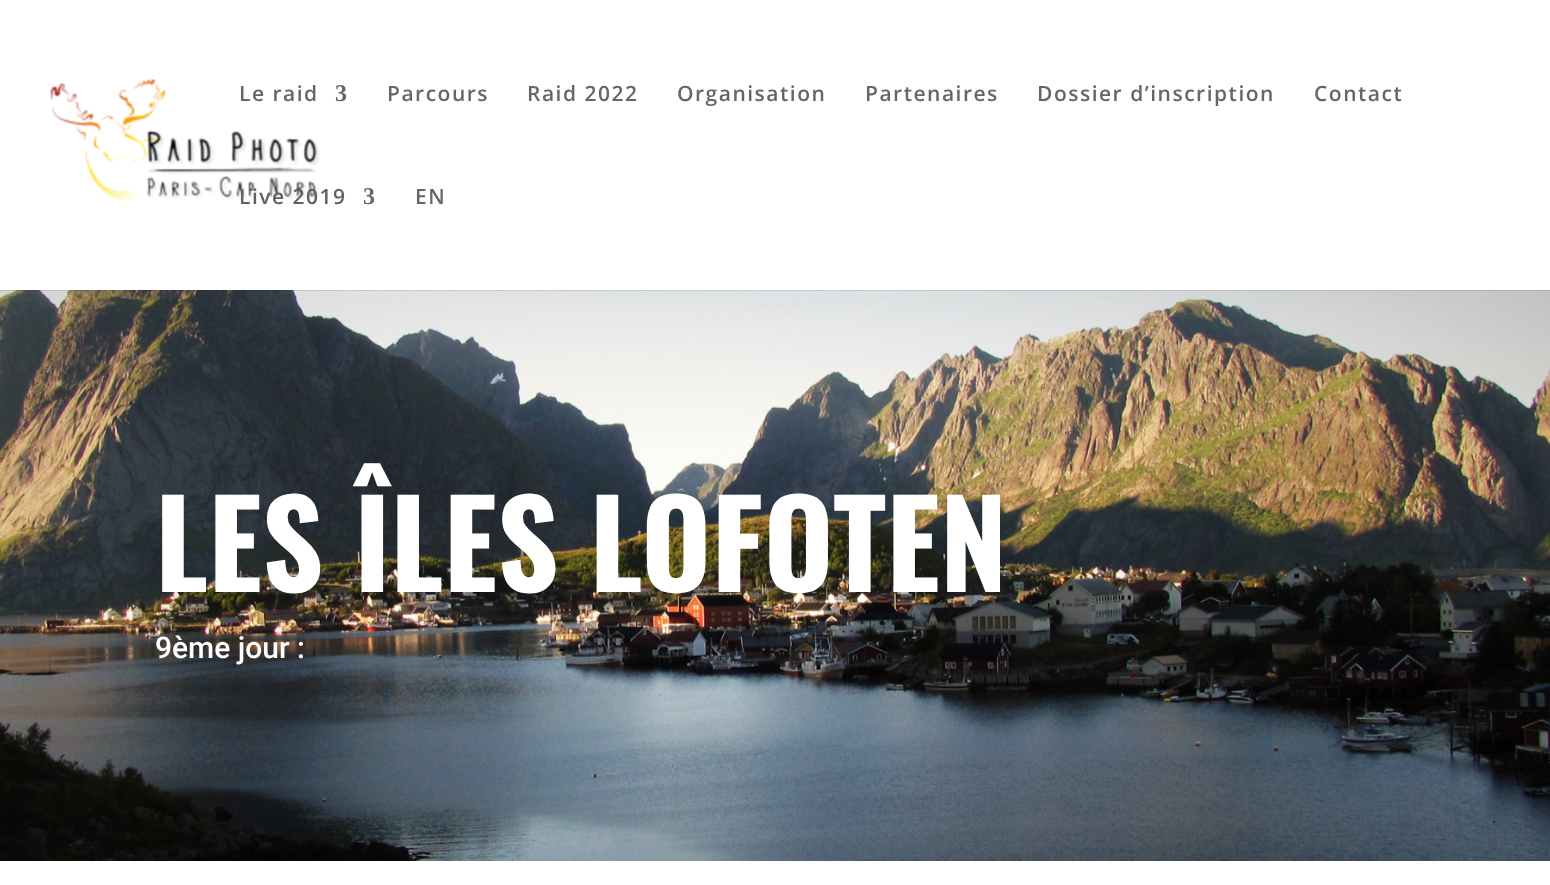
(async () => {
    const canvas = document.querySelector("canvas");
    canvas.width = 1550;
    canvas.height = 885;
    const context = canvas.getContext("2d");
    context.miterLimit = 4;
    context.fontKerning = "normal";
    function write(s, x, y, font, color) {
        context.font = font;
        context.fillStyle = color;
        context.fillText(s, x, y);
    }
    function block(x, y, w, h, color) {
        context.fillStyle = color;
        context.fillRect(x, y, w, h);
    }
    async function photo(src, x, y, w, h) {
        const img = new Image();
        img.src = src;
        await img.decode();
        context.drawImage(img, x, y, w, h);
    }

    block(0, 0, 1550, 885, "rgb(255, 255, 255)");
    await photo("media/2.png", 0, 290, 1550, 571);
    block(0, 290, 1550, 1, "rgba(0, 0, 0, 0.1)");
    await photo("media/1.png", 50, 79, 270, 122);
    context.letterSpacing = "1.5px";
    write("Le raid", 239, 101, "600 21px Open Sans", "rgb(102, 102, 102)");
    write("3", 335, 101, "bold 24px Liberation Serif", "rgb(102, 102, 102)");
    write("Parcours", 387, 101, "600 21px Open Sans", "rgb(102, 102, 102)");
    write("Raid 2022", 527, 101, "600 21px Open Sans", "rgb(102, 102, 102)");
    write("Organisation", 677, 101, "600 21px Open Sans", "rgb(102, 102, 102)");
    write("Partenaires", 865, 101, "600 21px Open Sans", "rgb(102, 102, 102)");
    write("Dossier d’inscription", 1037, 101, "600 21px Open Sans", "rgb(102, 102, 102)");
    write("Contact", 1314, 101, "600 21px Open Sans", "rgb(102, 102, 102)");
    write("Live 2019", 239, 204, "600 21px Open Sans", "rgb(96, 96, 96)");
    write("3", 363, 204, "bold 24px Liberation Serif", "rgb(102, 102, 102)");
    write("EN", 415, 204, "600 21px Open Sans", "rgb(102, 102, 102)");
    context.letterSpacing = "0px";
    write("LES ÎLES LOFOTEN", 155, 592, "bold 120px Oswald", "rgb(255, 255, 255)");
    write("9ème jour :", 155, 658, "500 30px Roboto", "rgb(255, 255, 255)");
})();
